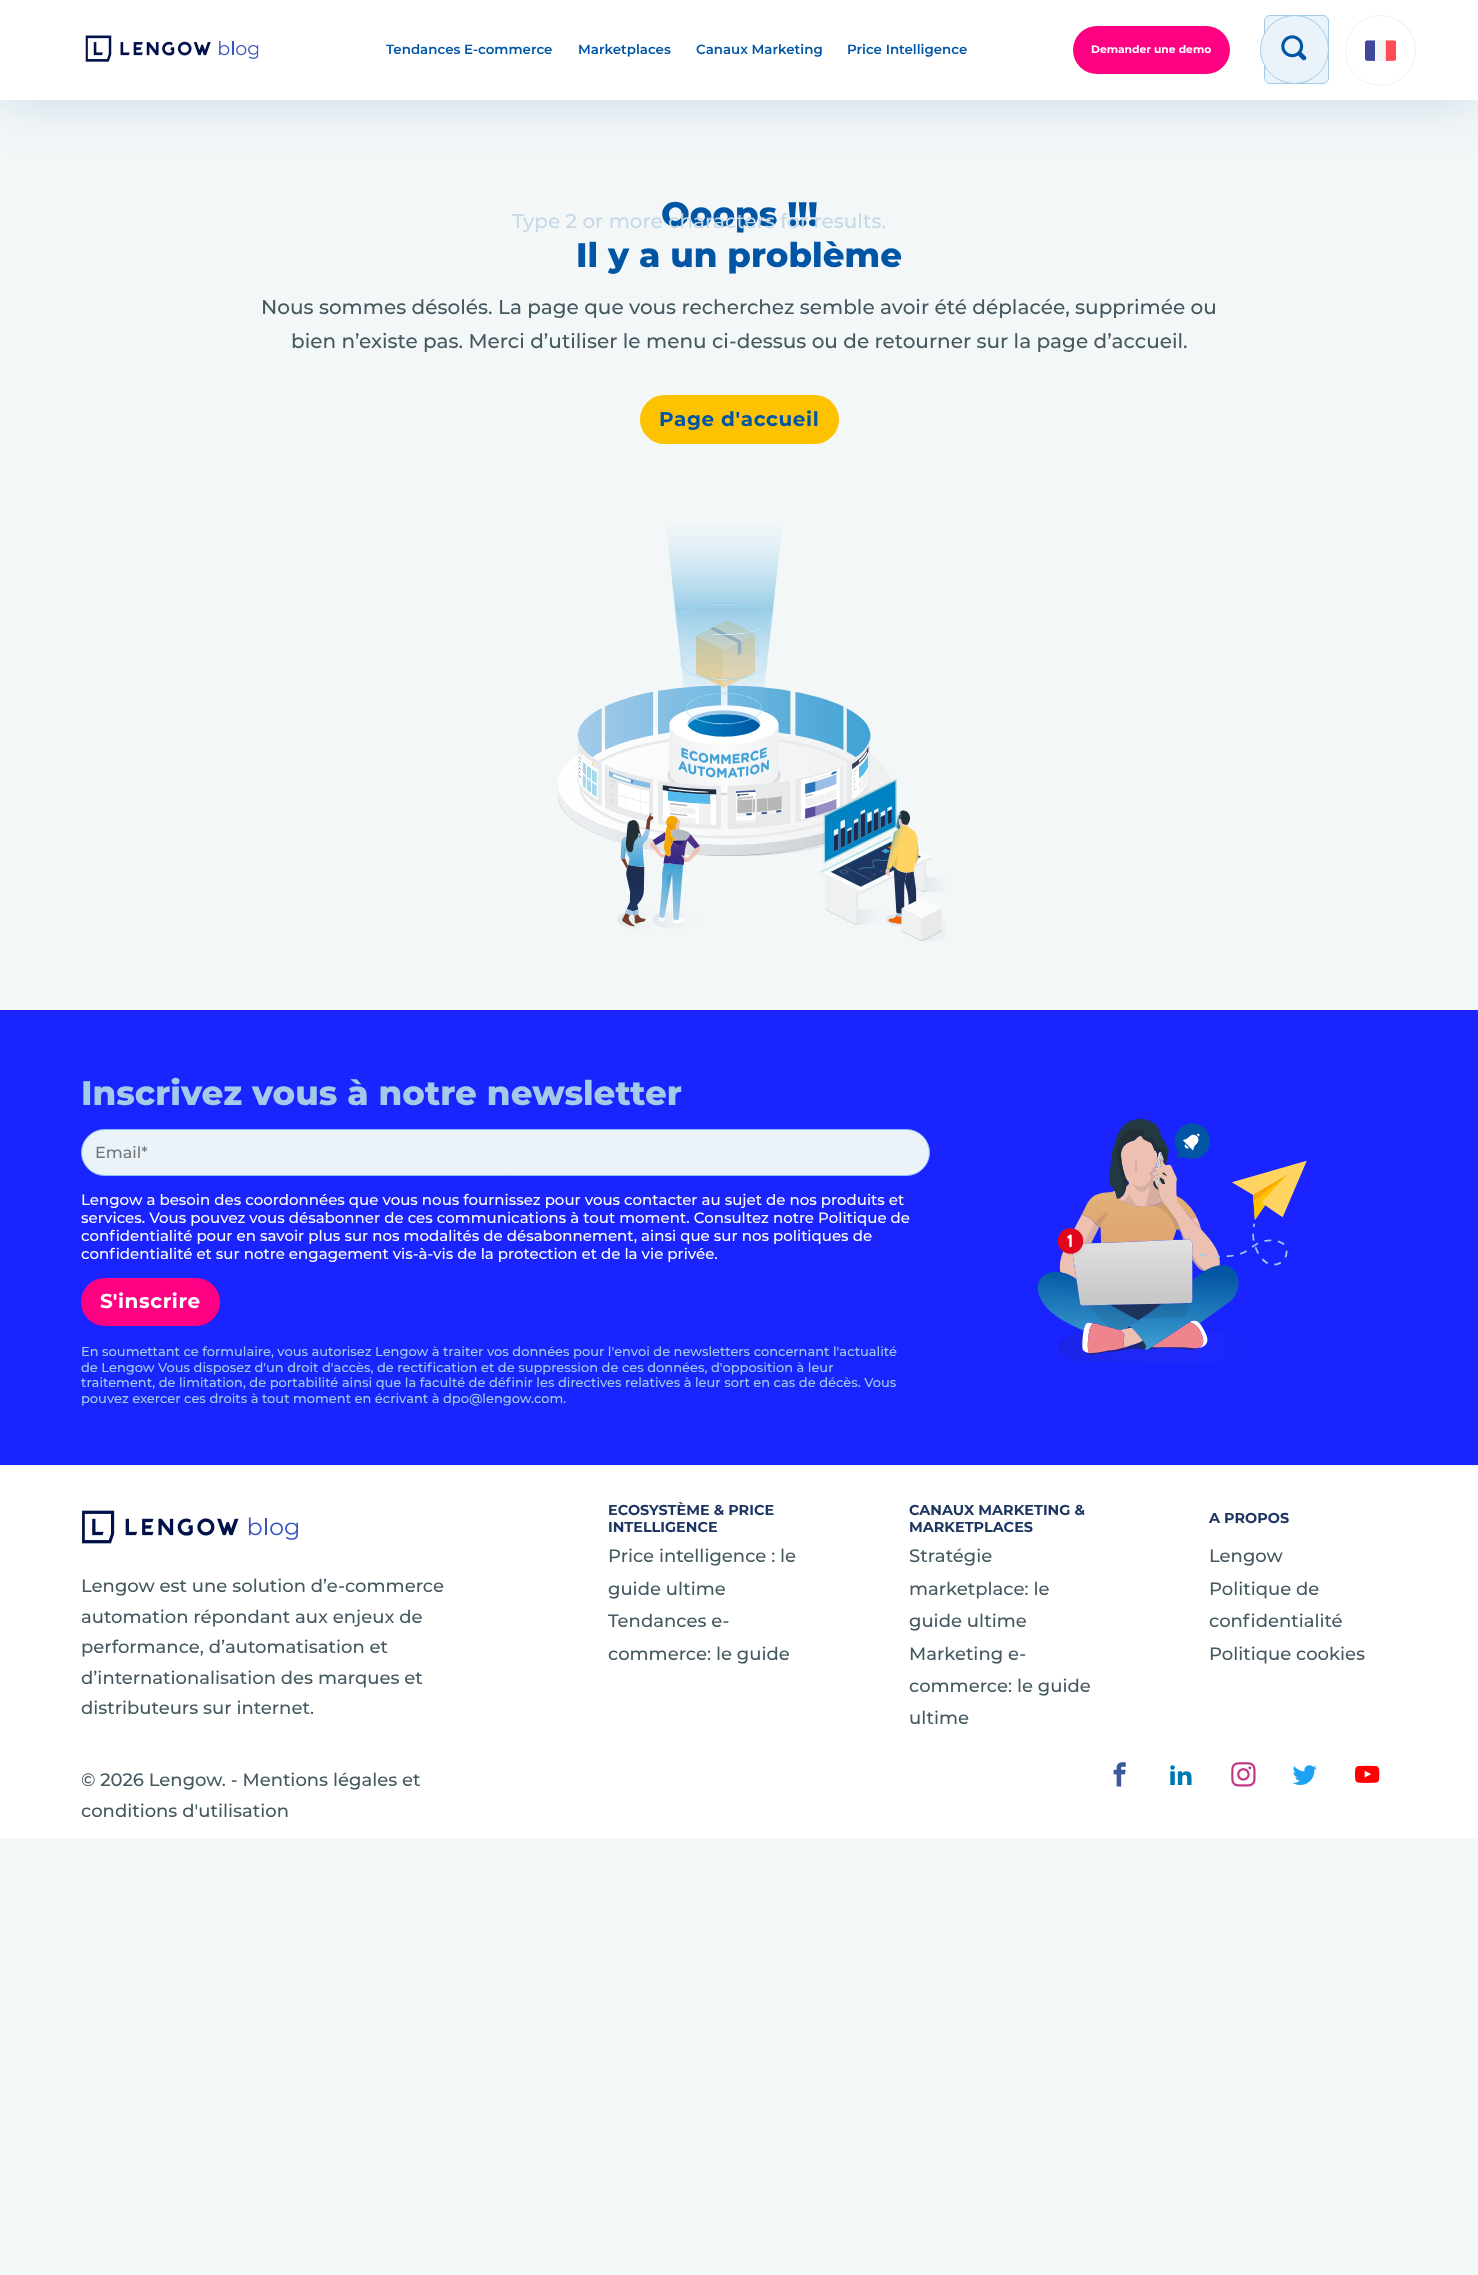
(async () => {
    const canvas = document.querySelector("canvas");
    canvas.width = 1478;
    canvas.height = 2275;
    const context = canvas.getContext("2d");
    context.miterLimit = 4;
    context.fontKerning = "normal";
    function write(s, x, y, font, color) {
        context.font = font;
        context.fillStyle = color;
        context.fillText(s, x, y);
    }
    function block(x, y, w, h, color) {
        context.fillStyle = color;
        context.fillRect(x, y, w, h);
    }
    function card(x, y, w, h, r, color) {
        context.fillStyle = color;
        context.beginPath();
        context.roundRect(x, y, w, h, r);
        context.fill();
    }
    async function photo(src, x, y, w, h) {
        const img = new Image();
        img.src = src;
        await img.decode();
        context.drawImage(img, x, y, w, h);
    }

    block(0, 0, 1478, 2275, "rgb(244, 247, 248)");
    context.fillStyle = "rgba(0, 86, 164, 0.15)";
    context.filter = "blur(25px)";
    context.beginPath();
    context.rect(0, 6, 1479, 100);
    context.fill();
    context.filter = "none";
    block(0, 0, 1478, 100, "rgb(255, 255, 255)");
    await photo("media/1.png", 85, 35, 174, 27);
    write("Tendances E-commerce", 386, 54, "600 13.4px Montserrat", "rgb(0, 86, 164)");
    write("Marketplaces", 578, 54, "600 13.4px Montserrat", "rgb(0, 86, 164)");
    write("Canaux Marketing", 696, 54, "600 13.4px Montserrat", "rgb(0, 86, 164)");
    write("Price Intelligence", 847, 54, "600 13.4px Montserrat", "rgb(0, 86, 164)");
    card(1073, 26, 157, 48, 24, "rgb(255, 0, 130)");
    write("Demander une demo", 1091, 53, "bold 10.75px Montserrat", "rgb(255, 255, 255)");
    context.beginPath();
    context.arc(1380.5, 50.5, 35, 0, Math.PI * 2);
    context.strokeStyle = "rgb(236, 241, 243)";
    context.stroke();
    await photo("media/2.png", 1365, 40, 31, 21);
    context.fillStyle = "rgb(234, 242, 250)";
    context.beginPath();
    context.roundRect(1264.5, 15.5, 64, 68, 5.5);
    context.fill();
    context.strokeStyle = "rgb(163, 203, 233)";
    context.stroke();
    context.beginPath();
    context.arc(1294.5, 49.5, 34, 0, Math.PI * 2);
    context.fill();
    context.stroke();
    await photo("media/3.png", 1281, 35, 26, 26);
    write("Ooops !!!", 661, 226, "800 34px Montserrat", "rgb(0, 86, 164)");
    write("Type 2 or more characters for results.", 512, 228, "500 20px Montserrat", "rgb(197, 216, 232)");
    write("Il y a un problème", 576, 267, "800 34px Montserrat", "rgb(0, 86, 164)");
    write("Nous sommes désolés. La page que vous recherchez semble avoir été déplacée, supprimée ou", 261, 314, "500 20px Montserrat", "rgb(68, 88, 96)");
    write("bien n’existe pas. Merci d’utiliser le menu ci-dessus ou de retourner sur la page d’accueil.", 291, 348, "500 20px Montserrat", "rgb(68, 88, 96)");
    card(640, 395, 199, 49, 24.5, "rgb(253, 195, 0)");
    context.letterSpacing = "0.6px";
    write("Page d'accueil", 659, 426, "bold 20px Montserrat", "rgb(0, 86, 164)");
    await photo("media/4.png", 558, 525, 387, 416);
    block(0, 1010, 1478, 455, "rgb(25, 36, 254)");
    context.letterSpacing = "0px";
    write("Inscrivez vous à notre newsletter", 81, 1105, "800 34px Montserrat", "rgb(163, 203, 233)");
    context.fillStyle = "rgb(234, 242, 250)";
    context.beginPath();
    context.roundRect(81.5, 1129.5, 848, 46, 23);
    context.fill();
    context.strokeStyle = "rgb(139, 191, 242)";
    context.stroke();
    write("Email*", 95, 1158, "500 16px Montserrat", "rgb(117, 117, 117)");
    write("Lengow a besoin des coordonnées que vous nous fournissez pour vous contacter au sujet de nos produits et", 81, 1205, "500 15px Montserrat", "rgb(255, 255, 255)");
    write("services. Vous pouvez vous désabonner de ces communications à tout moment. Consultez notre Politique de", 81, 1223, "500 15px Montserrat", "rgb(255, 255, 255)");
    write("confidentialité pour en savoir plus sur nos modalités de désabonnement, ainsi que sur nos politiques de", 81, 1241, "500 15px Montserrat", "rgb(255, 255, 255)");
    write("confidentialité et sur notre engagement vis-à-vis de la protection et de la vie privée.", 81, 1259, "500 15px Montserrat", "rgb(255, 255, 255)");
    card(81, 1278, 139, 48, 24, "rgb(255, 0, 130)");
    context.letterSpacing = "0.6px";
    write("S'inscrire", 100, 1308, "bold 20px Montserrat", "rgb(255, 255, 255)");
    context.letterSpacing = "0px";
    write("En soumettant ce formulaire, vous autorisez Lengow à traiter vos données pour l'envoi de newsletters concernant l'actualité", 81, 1356, "500 13px Montserrat", "rgb(163, 203, 233)");
    write("de Lengow Vous disposez d'un droit d'accès, de rectification et de suppression de ces données, d'opposition à leur", 81, 1372, "500 13px Montserrat", "rgb(163, 203, 233)");
    write("traitement, de limitation, de portabilité ainsi que la faculté de définir les directives relatives à leur sort en cas de décès. Vous", 81, 1387, "500 13px Montserrat", "rgb(163, 203, 233)");
    write("pouvez exercer ces droits à tout moment en écrivant à dpo@lengow.com.", 81, 1403, "500 13px Montserrat", "rgb(163, 203, 233)");
    await photo("media/5.png", 1037, 1119, 270, 243);
    block(0, 1466, 1478, 372, "rgb(255, 255, 255)");
    block(0, 1465, 1478, 1, "rgb(236, 241, 243)");
    await photo("media/6.png", 82, 1510, 216, 34);
    write("Lengow est une solution d’e-commerce", 81, 1592, "500 18px Montserrat", "rgb(68, 88, 96)");
    write("automation répondant aux enjeux de", 81, 1623, "500 18px Montserrat", "rgb(68, 88, 96)");
    write("performance, d’automatisation et", 81, 1653, "500 18px Montserrat", "rgb(68, 88, 96)");
    write("d’internationalisation des marques et", 81, 1684, "500 18px Montserrat", "rgb(68, 88, 96)");
    write("distributeurs sur internet.", 81, 1714, "500 18px Montserrat", "rgb(68, 88, 96)");
    write("ECOSYSTÈME & PRICE", 608, 1515, "bold 14.4px Montserrat", "rgb(29, 54, 97)");
    write("INTELLIGENCE", 608, 1532, "bold 14.4px Montserrat", "rgb(29, 54, 97)");
    write("Price intelligence : le", 608, 1562, "500 18px Montserrat", "rgb(68, 88, 96)");
    write("guide ultime", 608, 1595, "500 18px Montserrat", "rgb(68, 88, 96)");
    write("Tendances e-", 608, 1627, "500 18px Montserrat", "rgb(68, 88, 96)");
    write("commerce: le guide", 608, 1660, "500 18px Montserrat", "rgb(68, 88, 96)");
    write("CANAUX MARKETING &", 909, 1515, "bold 14.4px Montserrat", "rgb(29, 54, 97)");
    write("MARKETPLACES", 909, 1532, "bold 14.4px Montserrat", "rgb(29, 54, 97)");
    write("Stratégie", 909, 1562, "500 18px Montserrat", "rgb(68, 88, 96)");
    write("marketplace: le", 909, 1595, "500 18px Montserrat", "rgb(68, 88, 96)");
    write("guide ultime", 909, 1627, "500 18px Montserrat", "rgb(68, 88, 96)");
    write("Marketing e-", 909, 1660, "500 18px Montserrat", "rgb(68, 88, 96)");
    write("commerce: le guide", 909, 1692, "500 18px Montserrat", "rgb(68, 88, 96)");
    write("ultime", 909, 1724, "500 18px Montserrat", "rgb(68, 88, 96)");
    write("A PROPOS", 1209, 1523, "bold 14.4px Montserrat", "rgb(29, 54, 97)");
    write("Lengow", 1209, 1562, "500 18px Montserrat", "rgb(68, 88, 96)");
    write("Politique de", 1209, 1595, "500 18px Montserrat", "rgb(68, 88, 96)");
    write("confidentialité", 1209, 1627, "500 18px Montserrat", "rgb(68, 88, 96)");
    write("Politique cookies", 1209, 1660, "500 18px Montserrat", "rgb(68, 88, 96)");
    write("© 2026 Lengow. - Mentions légales et", 81, 1786, "500 18px Montserrat", "rgb(68, 88, 96)");
    write("conditions d'utilisation", 81, 1817, "500 18px Montserrat", "rgb(68, 88, 96)");
    await photo("media/7.png", 1113, 1762, 13, 25);
    await photo("media/8.png", 1170, 1765, 22, 20);
    await photo("media/9.png", 1231, 1762, 25, 25);
    await photo("media/10.png", 1292, 1765, 25, 20);
    await photo("media/11.png", 1355, 1765, 25, 18);
})();
